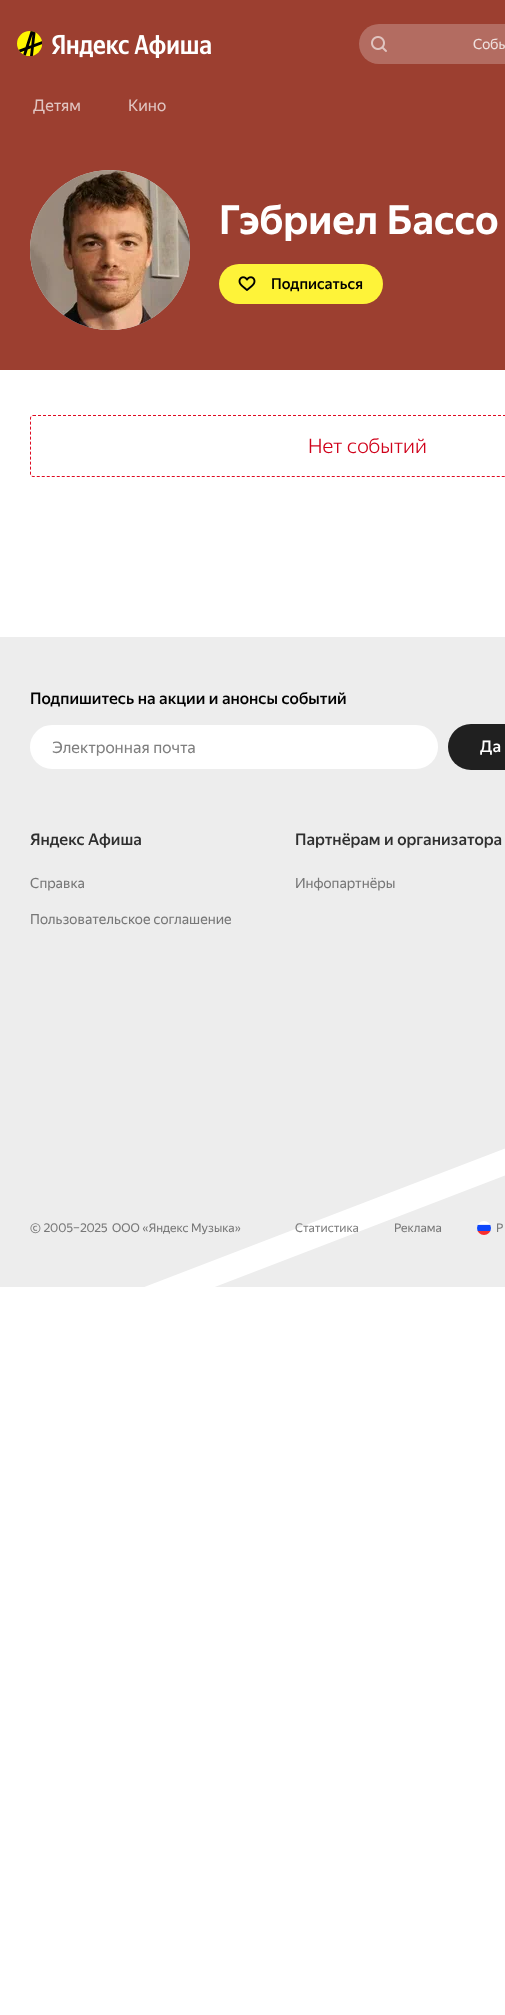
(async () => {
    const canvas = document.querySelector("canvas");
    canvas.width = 505;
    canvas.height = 2015;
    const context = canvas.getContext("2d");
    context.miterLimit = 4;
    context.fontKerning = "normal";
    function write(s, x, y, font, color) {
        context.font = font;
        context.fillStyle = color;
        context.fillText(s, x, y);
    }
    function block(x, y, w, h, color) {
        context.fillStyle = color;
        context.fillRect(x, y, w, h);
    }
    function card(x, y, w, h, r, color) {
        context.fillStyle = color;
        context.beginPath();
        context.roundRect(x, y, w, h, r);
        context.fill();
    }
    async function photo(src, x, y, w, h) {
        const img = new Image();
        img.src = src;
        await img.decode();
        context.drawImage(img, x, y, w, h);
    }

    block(0, 0, 505, 2015, "rgb(255, 255, 255)");
    block(0, 0, 505, 370, "rgb(156, 63, 48)");
    await photo("media/1.png", 17, 31, 26, 26);
    await photo("media/2.png", 52, 34, 159, 24);
    await photo("media/3.png", 371, 36, 16, 16);
    write("Собы", 473, 49, "14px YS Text", "rgb(235, 217, 214)");
    card(359, 24, 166, 40, 20, "rgba(255, 255, 255, 0.24)");
    write("Детям", 33, 111, "16px YS Text", "rgb(225, 197, 193)");
    write("Кино", 128, 111, "16px YS Text", "rgb(225, 197, 193)");
    context.fillStyle = "rgb(216, 216, 216)";
    context.beginPath();
    context.arc(110, 250, 80, 0, Math.PI * 2);
    context.fill();
    await photo("media/4.png", 30, 170, 160, 160);
    write("Гэбриел Бассо", 219, 234, "bold 40px YS Text", "rgb(255, 255, 255)");
    card(219, 264, 164, 40, 20, "rgb(254, 243, 57)");
    await photo("media/5.png", 238, 276, 18, 15);
    write("Подписаться", 271, 289, "500 15px YS Text", "rgb(0, 0, 0)");
    context.beginPath();
    context.moveTo(33, 415.5);
    context.lineTo(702, 415.5);
    context.bezierCurveTo(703.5, 415.5, 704.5, 416.5, 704.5, 418);
    context.lineTo(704.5, 474);
    context.bezierCurveTo(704.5, 475.5, 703.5, 476.5, 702, 476.5);
    context.lineTo(33, 476.5);
    context.bezierCurveTo(31.5, 476.5, 30.5, 475.5, 30.5, 474);
    context.lineTo(30.5, 418);
    context.bezierCurveTo(30.5, 416.5, 31.5, 415.5, 33, 415.5);
    context.closePath();
    context.strokeStyle = "rgb(223, 11, 34)";
    context.setLineDash([3, 2]);
    context.stroke();
    write("Нет событий", 308, 453, "300 20px YS Text", "rgb(208, 2, 27)");
    block(0, 637, 505, 650, "rgb(237, 237, 237)");
    write("Подпишитесь на акции и анонсы событий", 30, 704, "500 16px YS Text", "rgb(0, 0, 0)");
    context.fillStyle = "rgb(255, 255, 255)";
    context.beginPath();
    context.roundRect(31, 726, 406, 42, 21);
    context.fill();
    context.strokeStyle = "rgb(255, 255, 255)";
    context.lineWidth = 2;
    context.setLineDash([]);
    context.stroke();
    write("Электронная почта", 52, 753, "16px YS Text", "rgb(127, 127, 127)");
    card(448, 724, 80, 46, 23, "rgb(32, 32, 32)");
    write("Да", 480, 752, "500 16px YS Text", "rgb(255, 255, 255)");
    write("Яндекс Афиша", 30, 845, "500 16px YS Text", "rgb(47, 47, 47)");
    write("Справка", 30, 888, "14px YS Text", "rgb(119, 119, 119)");
    write("Пользовательское соглашение", 30, 924, "14px YS Text", "rgb(119, 119, 119)");
    write("Партнёрам и организатора", 295, 845, "500 16px YS Text", "rgb(47, 47, 47)");
    write("Инфопартнёры", 295, 888, "14px YS Text", "rgb(119, 119, 119)");
    write("© 2005–2025", 30, 1232, "12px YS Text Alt", "rgb(119, 119, 119)");
    context.save();
    context.beginPath();
    context.rect(100, 637, 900, 650);
    context.clip();
    context.fillStyle = "rgb(255, 255, 255)";
    context.beginPath();
    context.moveTo(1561, 770);
    context.lineTo(108, 1328);
    context.lineTo(100, 1304);
    context.lineTo(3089, 157);
    context.lineTo(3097, 181);
    context.closePath();
    context.fill("evenodd");
    context.restore();
    write("ООО «Яндекс Музыка»", 112, 1232, "12px YS Text", "rgb(119, 119, 119)");
    write("Статистика", 295, 1232, "12px YS Text", "rgb(127, 127, 127)");
    write("Реклама", 394, 1232, "12px YS Text", "rgb(119, 119, 119)");
    await photo("media/6.png", 477, 1221, 14, 14);
    write("Р", 496, 1232, "12px YS Text", "rgb(119, 119, 119)");
})();
